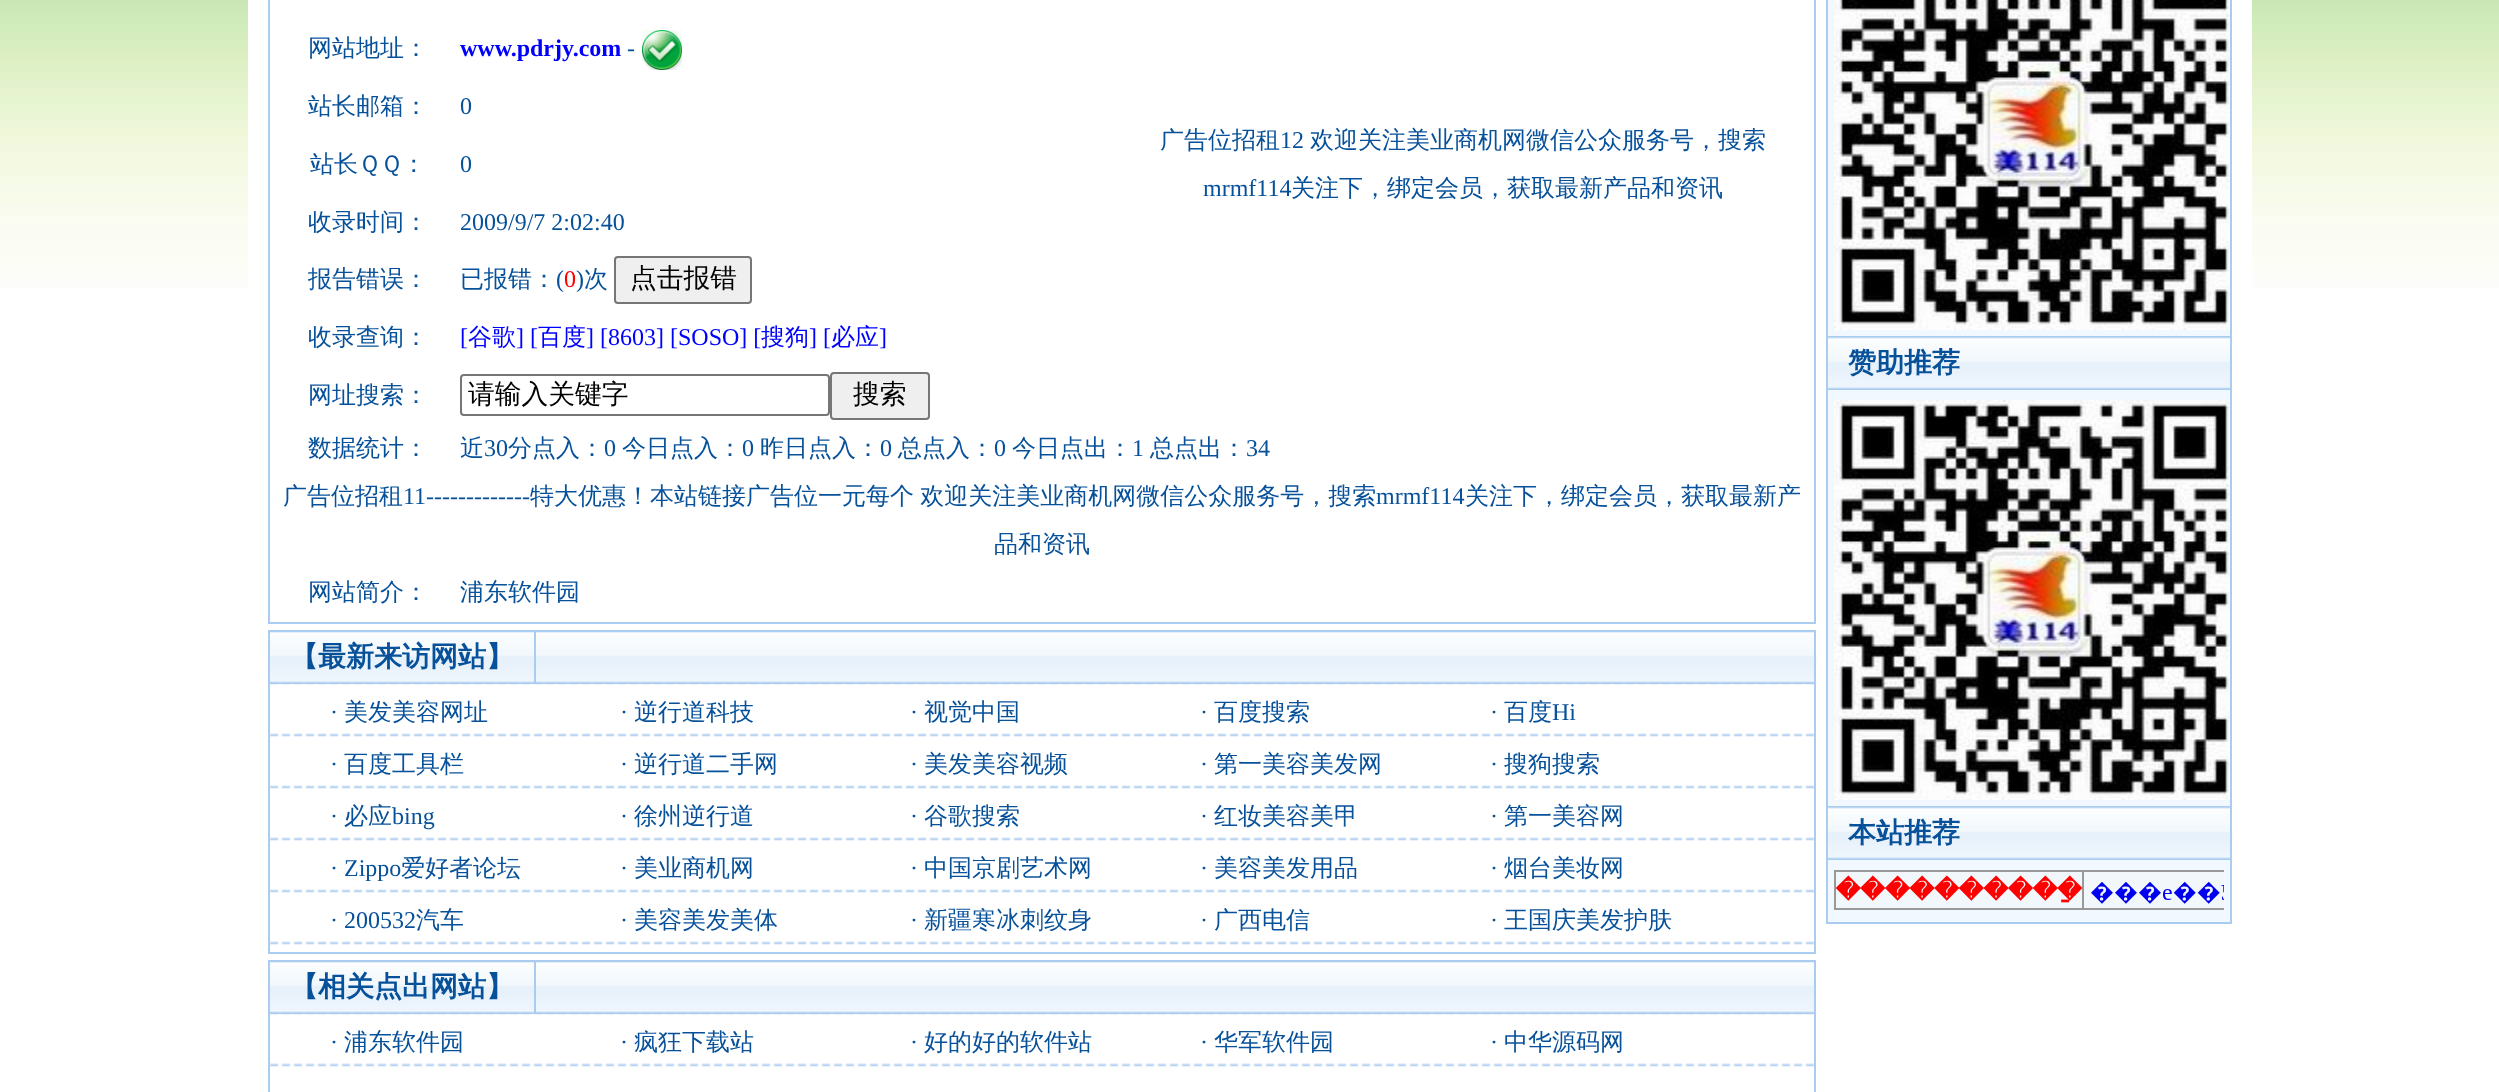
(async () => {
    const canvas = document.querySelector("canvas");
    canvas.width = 2499;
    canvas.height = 1092;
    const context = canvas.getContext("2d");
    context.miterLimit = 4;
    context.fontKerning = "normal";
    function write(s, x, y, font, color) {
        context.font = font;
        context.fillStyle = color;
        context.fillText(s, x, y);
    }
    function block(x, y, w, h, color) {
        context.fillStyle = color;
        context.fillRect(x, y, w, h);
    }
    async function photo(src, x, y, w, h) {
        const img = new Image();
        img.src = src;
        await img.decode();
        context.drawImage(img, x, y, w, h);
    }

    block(0, 0, 2499, 1092, "rgb(255, 255, 255)");
    await photo("media/1.png", 0, 0, 2499, 288);
    block(248, 0, 2004, 288, "rgb(255, 255, 255)");
    context.strokeStyle = "rgb(170, 204, 238)";
    context.lineWidth = 2;
    context.strokeRect(269, -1, 1546, 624);
    write("网站地址：", 308, 56, "500 24px WenQuanYi Zen Hei", "rgb(7, 81, 154)");
    write("www.pdrjy.com", 460, 56, "bold 24px Liberation Serif", "rgb(0, 0, 255)");
    write("-", 627, 56, "24px Liberation Serif", "rgb(7, 81, 154)");
    await photo("media/2.png", 642, 30, 40, 40);
    write("站长邮箱：", 308, 114, "500 24px WenQuanYi Zen Hei", "rgb(7, 81, 154)");
    write("0", 460, 114, "24px Liberation Serif", "rgb(7, 81, 154)");
    write("站长ＱＱ：", 310, 172, "500 24px WenQuanYi Zen Hei", "rgb(7, 81, 154)");
    write("0", 460, 172, "24px Liberation Serif", "rgb(7, 81, 154)");
    write("广告位招租", 1160, 148, "500 24px WenQuanYi Zen Hei", "rgb(7, 81, 154)");
    write("12", 1280, 148, "24px Liberation Serif", "rgb(7, 81, 154)");
    write("欢迎关注美业商机网微信公众服务号，搜索", 1310, 148, "500 24px WenQuanYi Zen Hei", "rgb(7, 81, 154)");
    write("mrmf114", 1203, 196, "24px Liberation Serif", "rgb(7, 81, 154)");
    write("关注下，绑定会员，获取最新产品和资讯", 1291, 196, "500 24px WenQuanYi Zen Hei", "rgb(7, 81, 154)");
    write("收录时间：", 308, 230, "500 24px WenQuanYi Zen Hei", "rgb(7, 81, 154)");
    write("2009/9/7 2:02:40", 460, 230, "24px Liberation Serif", "rgb(7, 81, 154)");
    write("报告错误：", 308, 287, "500 24px WenQuanYi Zen Hei", "rgb(7, 81, 154)");
    write("已报错：", 460, 287, "500 24px WenQuanYi Zen Hei", "rgb(7, 81, 154)");
    write("(", 556, 287, "24px Liberation Serif", "rgb(7, 81, 154)");
    write("0", 564, 287, "24px Liberation Serif", "rgb(255, 0, 0)");
    write(")", 576, 287, "24px Liberation Serif", "rgb(7, 81, 154)");
    write("次", 584, 287, "500 24px WenQuanYi Zen Hei", "rgb(7, 81, 154)");
    context.fillStyle = "rgb(239, 239, 239)";
    context.beginPath();
    context.roundRect(615, 257, 136, 46, 3);
    context.fill();
    context.strokeStyle = "rgb(118, 118, 118)";
    context.stroke();
    write("点击报错", 630, 287, "500 26.75px WenQuanYi Zen Hei", "rgb(0, 0, 0)");
    write("收录查询：", 308, 345, "500 24px WenQuanYi Zen Hei", "rgb(7, 81, 154)");
    write("[", 460, 345, "24px Liberation Serif", "rgb(0, 0, 255)");
    write("谷歌", 468, 345, "500 24px WenQuanYi Zen Hei", "rgb(0, 0, 255)");
    write("] [", 516, 345, "24px Liberation Serif", "rgb(0, 0, 255)");
    write("百度", 538, 345, "500 24px WenQuanYi Zen Hei", "rgb(0, 0, 255)");
    write("] [8603] [SOSO] [", 586, 345, "24px Liberation Serif", "rgb(0, 0, 255)");
    write("搜狗", 761, 345, "500 24px WenQuanYi Zen Hei", "rgb(0, 0, 255)");
    write("] [", 809, 345, "24px Liberation Serif", "rgb(0, 0, 255)");
    write("必应", 831, 345, "500 24px WenQuanYi Zen Hei", "rgb(0, 0, 255)");
    write("]", 879, 345, "24px Liberation Serif", "rgb(0, 0, 255)");
    write("网址搜索：", 308, 403, "500 24px WenQuanYi Zen Hei", "rgb(7, 81, 154)");
    context.beginPath();
    context.roundRect(461, 375, 368, 40, 3);
    context.stroke();
    write("请输入关键字", 468, 403, "500 26.75px WenQuanYi Zen Hei", "rgb(0, 0, 0)");
    context.fillStyle = "rgb(239, 239, 239)";
    context.beginPath();
    context.roundRect(831, 373, 98, 46, 3);
    context.fill();
    context.stroke();
    write("搜索", 853, 403, "500 26.75px WenQuanYi Zen Hei", "rgb(0, 0, 0)");
    write("数据统计：", 308, 456, "500 24px WenQuanYi Zen Hei", "rgb(7, 81, 154)");
    write("近", 460, 456, "500 24px WenQuanYi Zen Hei", "rgb(7, 81, 154)");
    write("30", 484, 456, "24px Liberation Serif", "rgb(7, 81, 154)");
    write("分点入：", 508, 456, "500 24px WenQuanYi Zen Hei", "rgb(7, 81, 154)");
    write("0", 604, 456, "24px Liberation Serif", "rgb(7, 81, 154)");
    write("今日点入：", 622, 456, "500 24px WenQuanYi Zen Hei", "rgb(7, 81, 154)");
    write("0", 742, 456, "24px Liberation Serif", "rgb(7, 81, 154)");
    write("昨日点入：", 760, 456, "500 24px WenQuanYi Zen Hei", "rgb(7, 81, 154)");
    write("0", 880, 456, "24px Liberation Serif", "rgb(7, 81, 154)");
    write("总点入：", 898, 456, "500 24px WenQuanYi Zen Hei", "rgb(7, 81, 154)");
    write("0", 994, 456, "24px Liberation Serif", "rgb(7, 81, 154)");
    write("今日点出：", 1012, 456, "500 24px WenQuanYi Zen Hei", "rgb(7, 81, 154)");
    write("1", 1132, 456, "24px Liberation Serif", "rgb(7, 81, 154)");
    write("总点出：", 1150, 456, "500 24px WenQuanYi Zen Hei", "rgb(7, 81, 154)");
    write("34", 1246, 456, "24px Liberation Serif", "rgb(7, 81, 154)");
    write("广告位招租", 283, 504, "500 24px WenQuanYi Zen Hei", "rgb(7, 81, 154)");
    write("11-------------", 403, 504, "24px Liberation Serif", "rgb(7, 81, 154)");
    context.wordSpacing = "-1px";
    write("特大优惠！本站链接广告位一元每个 欢迎关注美业商机网微信公众服务号，搜索", 530, 504, "500 24px WenQuanYi Zen Hei", "rgb(7, 81, 154)");
    context.wordSpacing = "0px";
    write("mrmf114", 1376, 504, "24px Liberation Serif", "rgb(7, 81, 154)");
    write("关注下，绑定会员，获取最新产", 1465, 504, "500 24px WenQuanYi Zen Hei", "rgb(7, 81, 154)");
    write("品和资讯", 994, 552, "500 24px WenQuanYi Zen Hei", "rgb(7, 81, 154)");
    write("网站简介：", 308, 600, "500 24px WenQuanYi Zen Hei", "rgb(7, 81, 154)");
    write("浦东软件园", 460, 600, "500 24px WenQuanYi Zen Hei", "rgb(7, 81, 154)");
    context.fillStyle = "rgb(241, 248, 255)";
    context.beginPath();
    context.rect(1827, -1, 404, 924);
    context.fill();
    context.strokeStyle = "rgb(170, 204, 238)";
    context.stroke();
    await photo("media/3.png", 1834, 0, 396, 330);
    await photo("media/4.png", 1828, 336, 402, 54);
    write("赞助推荐", 1848, 372, "bold 28px WenQuanYi Zen Hei", "rgb(7, 81, 154)");
    await photo("media/5.png", 1834, 400, 396, 400);
    await photo("media/4.png", 1828, 806, 402, 54);
    write("本站推荐", 1848, 842, "bold 28px WenQuanYi Zen Hei", "rgb(7, 81, 154)");
    await photo("media/6.png", 1834, 870, 390, 40);
    context.strokeRect(269, 631, 1546, 322);
    block(270, 632, 1544, 1, "rgb(229, 240, 251)");
    await photo("media/7.png", 270, 633, 1544, 51);
    block(534, 632, 2, 52, "rgb(170, 204, 238)");
    write("【最新来访网站】", 290, 666, "bold 28px WenQuanYi Zen Hei", "rgb(7, 81, 154)");
    await photo("media/8.png", 270, 684, 1544, 261);
    write("·", 330, 720, "24px Liberation Serif", "rgb(7, 81, 154)");
    write("美发美容网址", 344, 720, "500 24px WenQuanYi Zen Hei", "rgb(7, 81, 154)");
    write("·", 620, 720, "24px Liberation Serif", "rgb(7, 81, 154)");
    write("逆行道科技", 634, 720, "500 24px WenQuanYi Zen Hei", "rgb(7, 81, 154)");
    write("·", 910, 720, "24px Liberation Serif", "rgb(7, 81, 154)");
    write("视觉中国", 924, 720, "500 24px WenQuanYi Zen Hei", "rgb(7, 81, 154)");
    write("·", 1200, 720, "24px Liberation Serif", "rgb(7, 81, 154)");
    write("百度搜索", 1214, 720, "500 24px WenQuanYi Zen Hei", "rgb(7, 81, 154)");
    write("·", 1490, 720, "24px Liberation Serif", "rgb(7, 81, 154)");
    write("百度", 1504, 720, "500 24px WenQuanYi Zen Hei", "rgb(7, 81, 154)");
    write("Hi", 1552, 720, "24px Liberation Serif", "rgb(7, 81, 154)");
    write("·", 330, 772, "24px Liberation Serif", "rgb(7, 81, 154)");
    write("百度工具栏", 344, 772, "500 24px WenQuanYi Zen Hei", "rgb(7, 81, 154)");
    write("·", 620, 772, "24px Liberation Serif", "rgb(7, 81, 154)");
    write("逆行道二手网", 634, 772, "500 24px WenQuanYi Zen Hei", "rgb(7, 81, 154)");
    write("·", 910, 772, "24px Liberation Serif", "rgb(7, 81, 154)");
    write("美发美容视频", 924, 772, "500 24px WenQuanYi Zen Hei", "rgb(7, 81, 154)");
    write("·", 1200, 772, "24px Liberation Serif", "rgb(7, 81, 154)");
    write("第一美容美发网", 1214, 772, "500 24px WenQuanYi Zen Hei", "rgb(7, 81, 154)");
    write("·", 1490, 772, "24px Liberation Serif", "rgb(7, 81, 154)");
    write("搜狗搜索", 1504, 772, "500 24px WenQuanYi Zen Hei", "rgb(7, 81, 154)");
    write("·", 330, 824, "24px Liberation Serif", "rgb(7, 81, 154)");
    write("必应", 344, 824, "500 24px WenQuanYi Zen Hei", "rgb(7, 81, 154)");
    write("bing", 392, 824, "24px Liberation Serif", "rgb(7, 81, 154)");
    write("·", 620, 824, "24px Liberation Serif", "rgb(7, 81, 154)");
    write("徐州逆行道", 634, 824, "500 24px WenQuanYi Zen Hei", "rgb(7, 81, 154)");
    write("·", 910, 824, "24px Liberation Serif", "rgb(7, 81, 154)");
    write("谷歌搜索", 924, 824, "500 24px WenQuanYi Zen Hei", "rgb(7, 81, 154)");
    write("·", 1200, 824, "24px Liberation Serif", "rgb(7, 81, 154)");
    write("红妆美容美甲", 1214, 824, "500 24px WenQuanYi Zen Hei", "rgb(7, 81, 154)");
    write("·", 1490, 824, "24px Liberation Serif", "rgb(7, 81, 154)");
    write("第一美容网", 1504, 824, "500 24px WenQuanYi Zen Hei", "rgb(7, 81, 154)");
    write("· Zippo", 330, 876, "24px Liberation Serif", "rgb(7, 81, 154)");
    write("爱好者论坛", 401, 876, "500 24px WenQuanYi Zen Hei", "rgb(7, 81, 154)");
    write("·", 620, 876, "24px Liberation Serif", "rgb(7, 81, 154)");
    write("美业商机网", 634, 876, "500 24px WenQuanYi Zen Hei", "rgb(7, 81, 154)");
    write("·", 910, 876, "24px Liberation Serif", "rgb(7, 81, 154)");
    write("中国京剧艺术网", 924, 876, "500 24px WenQuanYi Zen Hei", "rgb(7, 81, 154)");
    write("·", 1200, 876, "24px Liberation Serif", "rgb(7, 81, 154)");
    write("美容美发用品", 1214, 876, "500 24px WenQuanYi Zen Hei", "rgb(7, 81, 154)");
    write("·", 1490, 876, "24px Liberation Serif", "rgb(7, 81, 154)");
    write("烟台美妆网", 1504, 876, "500 24px WenQuanYi Zen Hei", "rgb(7, 81, 154)");
    write("· 200532", 330, 928, "24px Liberation Serif", "rgb(7, 81, 154)");
    write("汽车", 416, 928, "500 24px WenQuanYi Zen Hei", "rgb(7, 81, 154)");
    write("·", 620, 928, "24px Liberation Serif", "rgb(7, 81, 154)");
    write("美容美发美体", 634, 928, "500 24px WenQuanYi Zen Hei", "rgb(7, 81, 154)");
    write("·", 910, 928, "24px Liberation Serif", "rgb(7, 81, 154)");
    write("新疆寒冰刺纹身", 924, 928, "500 24px WenQuanYi Zen Hei", "rgb(7, 81, 154)");
    write("·", 1200, 928, "24px Liberation Serif", "rgb(7, 81, 154)");
    write("广西电信", 1214, 928, "500 24px WenQuanYi Zen Hei", "rgb(7, 81, 154)");
    write("·", 1490, 928, "24px Liberation Serif", "rgb(7, 81, 154)");
    write("王国庆美发护肤", 1504, 928, "500 24px WenQuanYi Zen Hei", "rgb(7, 81, 154)");
    context.strokeRect(269, 961, 1546, 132);
    block(270, 962, 1544, 1, "rgb(229, 240, 251)");
    await photo("media/7.png", 270, 963, 1544, 51);
    block(534, 962, 2, 52, "rgb(170, 204, 238)");
    write("【相关点出网站】", 290, 996, "bold 28px WenQuanYi Zen Hei", "rgb(7, 81, 154)");
    await photo("media/9.png", 270, 1014, 1544, 53);
    write("·", 330, 1050, "24px Liberation Serif", "rgb(7, 81, 154)");
    write("浦东软件园", 344, 1050, "500 24px WenQuanYi Zen Hei", "rgb(7, 81, 154)");
    write("·", 620, 1050, "24px Liberation Serif", "rgb(7, 81, 154)");
    write("疯狂下载站", 634, 1050, "500 24px WenQuanYi Zen Hei", "rgb(7, 81, 154)");
    write("·", 910, 1050, "24px Liberation Serif", "rgb(7, 81, 154)");
    write("好的好的软件站", 924, 1050, "500 24px WenQuanYi Zen Hei", "rgb(7, 81, 154)");
    write("·", 1200, 1050, "24px Liberation Serif", "rgb(7, 81, 154)");
    write("华军软件园", 1214, 1050, "500 24px WenQuanYi Zen Hei", "rgb(7, 81, 154)");
    write("·", 1490, 1050, "24px Liberation Serif", "rgb(7, 81, 154)");
    write("中华源码网", 1504, 1050, "500 24px WenQuanYi Zen Hei", "rgb(7, 81, 154)");
})();
